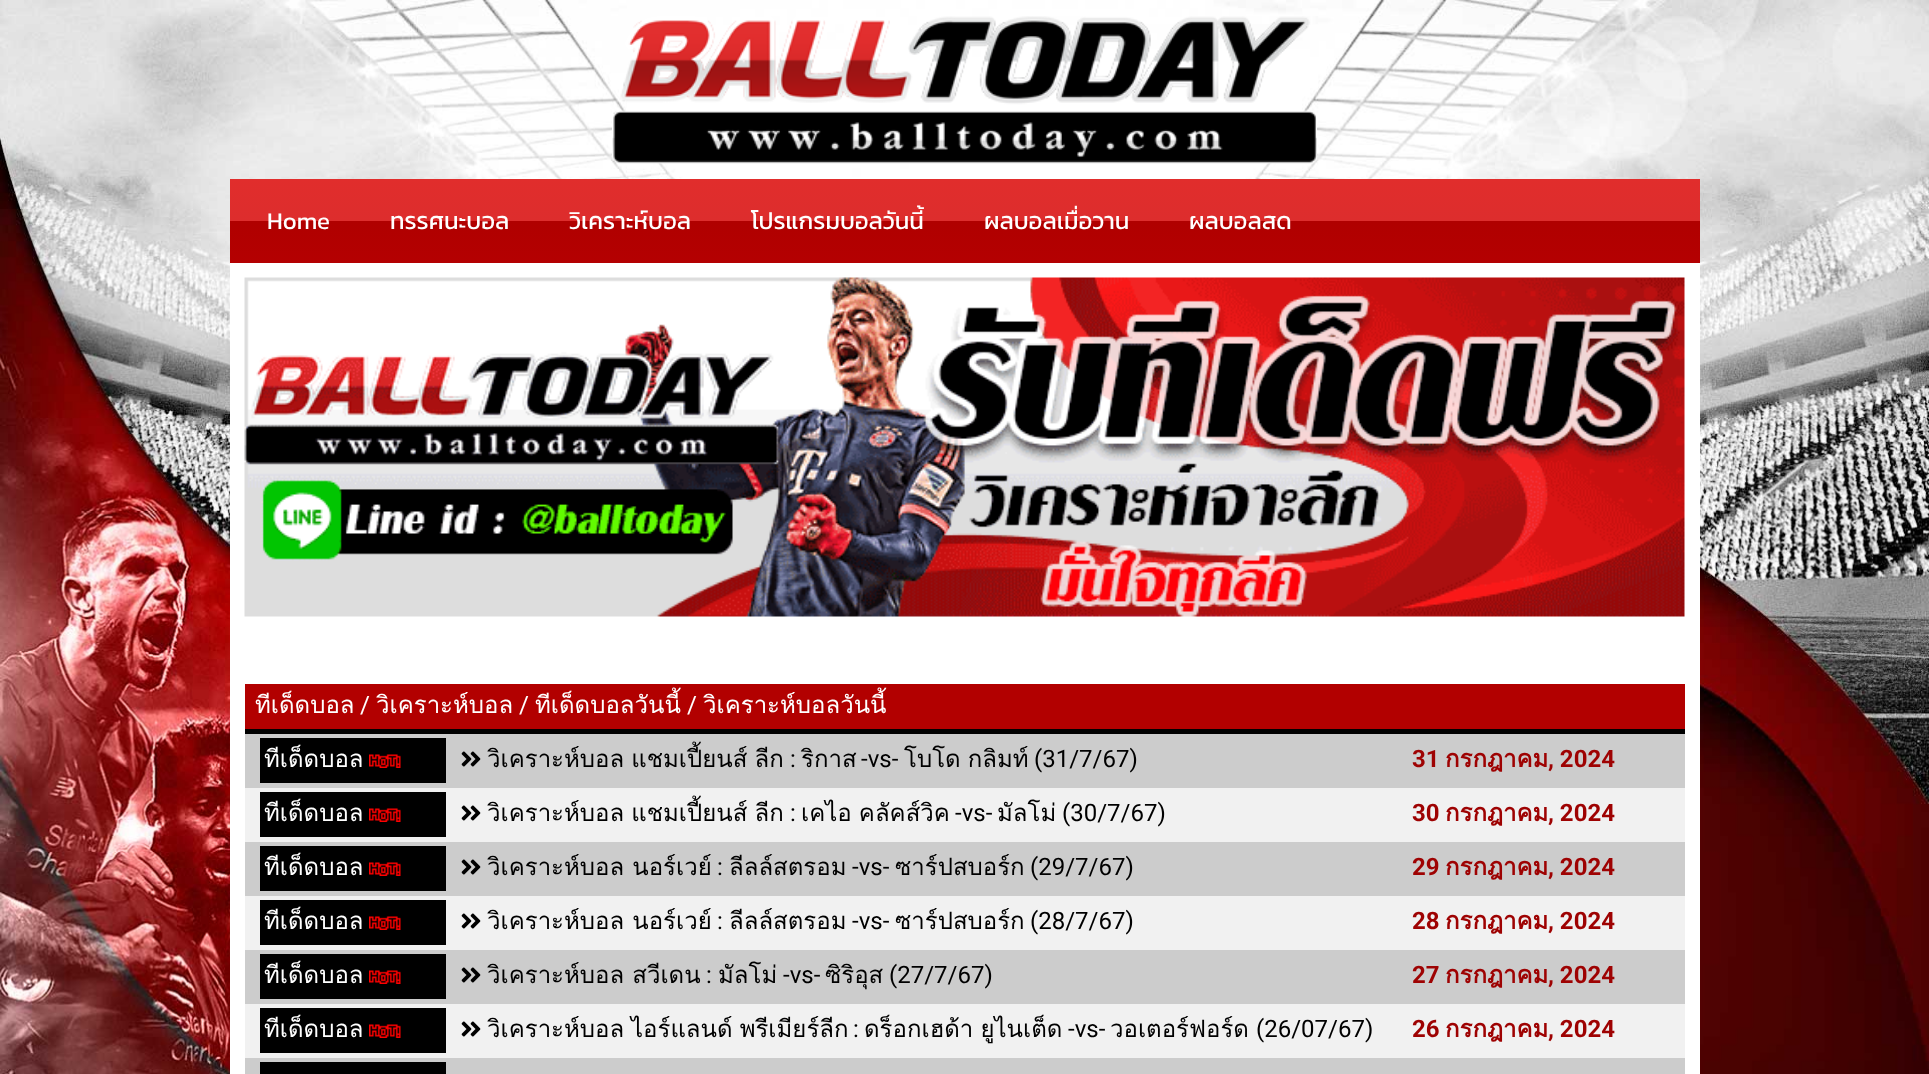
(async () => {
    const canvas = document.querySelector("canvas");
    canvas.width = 1929;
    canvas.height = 1074;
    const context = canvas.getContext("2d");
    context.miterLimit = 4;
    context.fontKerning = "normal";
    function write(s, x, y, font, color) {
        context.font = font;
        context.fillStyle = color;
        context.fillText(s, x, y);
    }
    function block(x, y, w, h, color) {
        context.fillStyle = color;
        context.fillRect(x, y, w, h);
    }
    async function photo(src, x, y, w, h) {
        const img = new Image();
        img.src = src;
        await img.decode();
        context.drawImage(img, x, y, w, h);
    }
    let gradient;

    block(0, 0, 1929, 1074, "rgb(255, 255, 255)");
    await photo("media/1.png", 0, 0, 1929, 1074);
    await photo("media/2.png", 612, 16, 705, 148);
    gradient = context.createLinearGradient(965, 178, 965, 263);
    gradient.addColorStop(0.01, "rgb(225, 45, 44)");
    gradient.addColorStop(0.5, "rgb(221, 45, 45)");
    gradient.addColorStop(0.51, "rgb(176, 0, 0)");
    gradient.addColorStop(1, "rgb(180, 0, 1)");
    context.fillStyle = gradient;
    context.fillRect(230, 179, 1470, 84);
    write("Home", 267, 229, "24px Kanit", "rgb(255, 255, 255)");
    write("ทรรศนะบอล", 390, 229, "24px Kanit", "rgb(255, 255, 255)");
    write("วิเคราะห์บอล", 569, 229, "24px Kanit", "rgb(255, 255, 255)");
    write("โปรแกรมบอลวันนี้", 751, 229, "24px Kanit", "rgb(255, 255, 255)");
    write("ผลบอลเมื่อวาน", 984, 229, "24px Kanit", "rgb(255, 255, 255)");
    write("ผลบอลสด", 1189, 229, "24px Kanit", "rgb(255, 255, 255)");
    block(230, 263, 1470, 811, "rgb(255, 255, 255)");
    await photo("media/3.png", 244, 277, 1441, 340);
    block(245, 684, 1440, 45, "rgb(178, 0, 0)");
    block(245, 729, 1440, 5, "rgb(0, 0, 0)");
    write("ทีเด็ดบอล", 255, 713, "24px Loma", "rgb(255, 255, 255)");
    write("/", 360, 713, "24px Roboto", "rgb(255, 255, 255)");
    write("วิเคราะห์บอล", 376, 713, "24px Loma", "rgb(255, 255, 255)");
    write("/", 519, 713, "24px Roboto", "rgb(255, 255, 255)");
    write("ทีเด็ดบอลวันนี้", 535, 713, "24px Loma", "rgb(255, 255, 255)");
    write("/", 687, 713, "24px Roboto", "rgb(255, 255, 255)");
    write("วิเคราะห์บอลวันนี้", 703, 713, "24px Loma", "rgb(255, 255, 255)");
    block(245, 734, 1440, 54, "rgb(204, 204, 204)");
    block(260, 738, 186, 45, "rgb(0, 0, 0)");
    write("ทีเด็ดบอล", 264, 767, "24px Loma", "rgb(255, 255, 255)");
    await photo("media/4.png", 369, 754, 32, 14);
    await photo("media/5.png", 461, 751, 20, 16);
    context.wordSpacing = "-1px";
    write("วิเคราะห์บอล แชมเปี้ยนส์ ลีก", 487, 767, "24px Loma", "rgb(0, 0, 0)");
    context.wordSpacing = "0px";
    write(":", 790, 767, "24px Roboto", "rgb(0, 0, 0)");
    write("ริกาส", 801, 767, "24px Loma", "rgb(0, 0, 0)");
    context.wordSpacing = "-1px";
    write("โบโด กลิมท์", 904, 767, "24px Loma", "rgb(0, 0, 0)");
    context.wordSpacing = "0px";
    write("(31/7/67)", 1034, 767, "24px Roboto", "rgb(0, 0, 0)");
    write("-vs-", 861, 767, "24px Roboto", "rgb(0, 0, 0)");
    write("31", 1412, 767, "bold 24px Roboto", "rgb(158, 2, 2)");
    write("กรกฎาคม", 1445, 767, "bold 24px Loma", "rgb(158, 2, 2)");
    write(", 2024", 1548, 767, "bold 24px Roboto", "rgb(158, 2, 2)");
    block(245, 788, 1440, 54, "rgb(241, 241, 241)");
    block(260, 792, 186, 45, "rgb(0, 0, 0)");
    write("ทีเด็ดบอล", 264, 821, "24px Loma", "rgb(255, 255, 255)");
    await photo("media/4.png", 369, 808, 32, 14);
    await photo("media/6.png", 461, 805, 20, 16);
    context.wordSpacing = "-1px";
    write("วิเคราะห์บอล แชมเปี้ยนส์ ลีก", 487, 821, "24px Loma", "rgb(0, 0, 0)");
    context.wordSpacing = "0px";
    write(":", 790, 821, "24px Roboto", "rgb(0, 0, 0)");
    context.wordSpacing = "-1px";
    write("เคไอ คลัคส์วิค", 801, 821, "24px Loma", "rgb(0, 0, 0)");
    context.wordSpacing = "0px";
    write("-vs-", 955, 821, "24px Roboto", "rgb(0, 0, 0)");
    write("มัลโม่", 997, 821, "24px Loma", "rgb(0, 0, 0)");
    write("(30/7/67)", 1062, 821, "24px Roboto", "rgb(0, 0, 0)");
    write("30", 1412, 821, "bold 24px Roboto", "rgb(158, 2, 2)");
    write("กรกฎาคม", 1445, 821, "bold 24px Loma", "rgb(158, 2, 2)");
    write(", 2024", 1548, 821, "bold 24px Roboto", "rgb(158, 2, 2)");
    block(245, 842, 1440, 54, "rgb(204, 204, 204)");
    block(260, 846, 186, 45, "rgb(0, 0, 0)");
    write("ทีเด็ดบอล", 264, 875, "24px Loma", "rgb(255, 255, 255)");
    await photo("media/4.png", 369, 862, 32, 14);
    await photo("media/5.png", 461, 859, 20, 16);
    write("วิเคราะห์บอล นอร์เวย์", 487, 875, "24px Loma", "rgb(0, 0, 0)");
    write(":", 717, 875, "24px Roboto", "rgb(0, 0, 0)");
    write("ลีลล์สตรอม", 729, 875, "24px Loma", "rgb(0, 0, 0)");
    write("ซาร์ปสบอร์ก", 895, 875, "24px Loma", "rgb(0, 0, 0)");
    write("(29/7/67)", 1030, 875, "24px Roboto", "rgb(0, 0, 0)");
    write("-vs-", 852, 875, "24px Roboto", "rgb(0, 0, 0)");
    write("29", 1412, 875, "bold 24px Roboto", "rgb(158, 2, 2)");
    write("กรกฎาคม", 1445, 875, "bold 24px Loma", "rgb(158, 2, 2)");
    write(", 2024", 1548, 875, "bold 24px Roboto", "rgb(158, 2, 2)");
    block(245, 896, 1440, 54, "rgb(241, 241, 241)");
    block(260, 900, 186, 45, "rgb(0, 0, 0)");
    write("ทีเด็ดบอล", 264, 929, "24px Loma", "rgb(255, 255, 255)");
    await photo("media/4.png", 369, 916, 32, 14);
    await photo("media/6.png", 461, 913, 20, 16);
    write("วิเคราะห์บอล นอร์เวย์", 487, 929, "24px Loma", "rgb(0, 0, 0)");
    write(":", 717, 929, "24px Roboto", "rgb(0, 0, 0)");
    write("ลีลล์สตรอม", 729, 929, "24px Loma", "rgb(0, 0, 0)");
    write("ซาร์ปสบอร์ก", 895, 929, "24px Loma", "rgb(0, 0, 0)");
    write("(28/7/67)", 1030, 929, "24px Roboto", "rgb(0, 0, 0)");
    write("-vs-", 852, 929, "24px Roboto", "rgb(0, 0, 0)");
    write("28", 1412, 929, "bold 24px Roboto", "rgb(158, 2, 2)");
    write("กรกฎาคม", 1445, 929, "bold 24px Loma", "rgb(158, 2, 2)");
    write(", 2024", 1548, 929, "bold 24px Roboto", "rgb(158, 2, 2)");
    block(245, 950, 1440, 54, "rgb(204, 204, 204)");
    block(260, 954, 186, 45, "rgb(0, 0, 0)");
    write("ทีเด็ดบอล", 264, 983, "24px Loma", "rgb(255, 255, 255)");
    await photo("media/4.png", 369, 970, 32, 14);
    await photo("media/5.png", 461, 967, 20, 16);
    write("วิเคราะห์บอล สวีเดน", 487, 983, "24px Loma", "rgb(0, 0, 0)");
    write(":", 706, 983, "24px Roboto", "rgb(0, 0, 0)");
    write("มัลโม่", 718, 983, "24px Loma", "rgb(0, 0, 0)");
    write("-vs-", 783, 983, "24px Roboto", "rgb(0, 0, 0)");
    write("ซิริอุส", 825, 983, "24px Loma", "rgb(0, 0, 0)");
    write("(27/7/67)", 889, 983, "24px Roboto", "rgb(0, 0, 0)");
    write("27", 1412, 983, "bold 24px Roboto", "rgb(158, 2, 2)");
    write("กรกฎาคม", 1445, 983, "bold 24px Loma", "rgb(158, 2, 2)");
    write(", 2024", 1548, 983, "bold 24px Roboto", "rgb(158, 2, 2)");
    block(245, 1004, 1440, 54, "rgb(241, 241, 241)");
    block(260, 1008, 186, 45, "rgb(0, 0, 0)");
    write("ทีเด็ดบอล", 264, 1037, "24px Loma", "rgb(255, 255, 255)");
    await photo("media/4.png", 369, 1024, 32, 14);
    await photo("media/6.png", 461, 1021, 20, 16);
    write("วิเคราะห์บอล", 487, 1037, "24px Loma", "rgb(0, 0, 0)");
    context.wordSpacing = "-1px";
    write("ไอร์แลนด์ พรีเมียร์ลีก", 631, 1037, "24px Loma", "rgb(0, 0, 0)");
    context.wordSpacing = "0px";
    write(":", 853, 1037, "24px Roboto", "rgb(0, 0, 0)");
    context.wordSpacing = "-1px";
    write("ดร็อกเฮด้า ยูไนเต็ด", 864, 1037, "24px Loma", "rgb(0, 0, 0)");
    context.wordSpacing = "0px";
    write("-vs-", 1068, 1037, "24px Roboto", "rgb(0, 0, 0)");
    write("วอเตอร์ฟอร์ด", 1110, 1037, "24px Loma", "rgb(0, 0, 0)");
    write("(26/07/67)", 1256, 1037, "24px Roboto", "rgb(0, 0, 0)");
    write("26", 1412, 1037, "bold 24px Roboto", "rgb(158, 2, 2)");
    write("กรกฎาคม", 1445, 1037, "bold 24px Loma", "rgb(158, 2, 2)");
    write(", 2024", 1548, 1037, "bold 24px Roboto", "rgb(158, 2, 2)");
    block(245, 1058, 1440, 16, "rgb(204, 204, 204)");
    block(260, 1062, 186, 12, "rgb(0, 0, 0)");
})();
